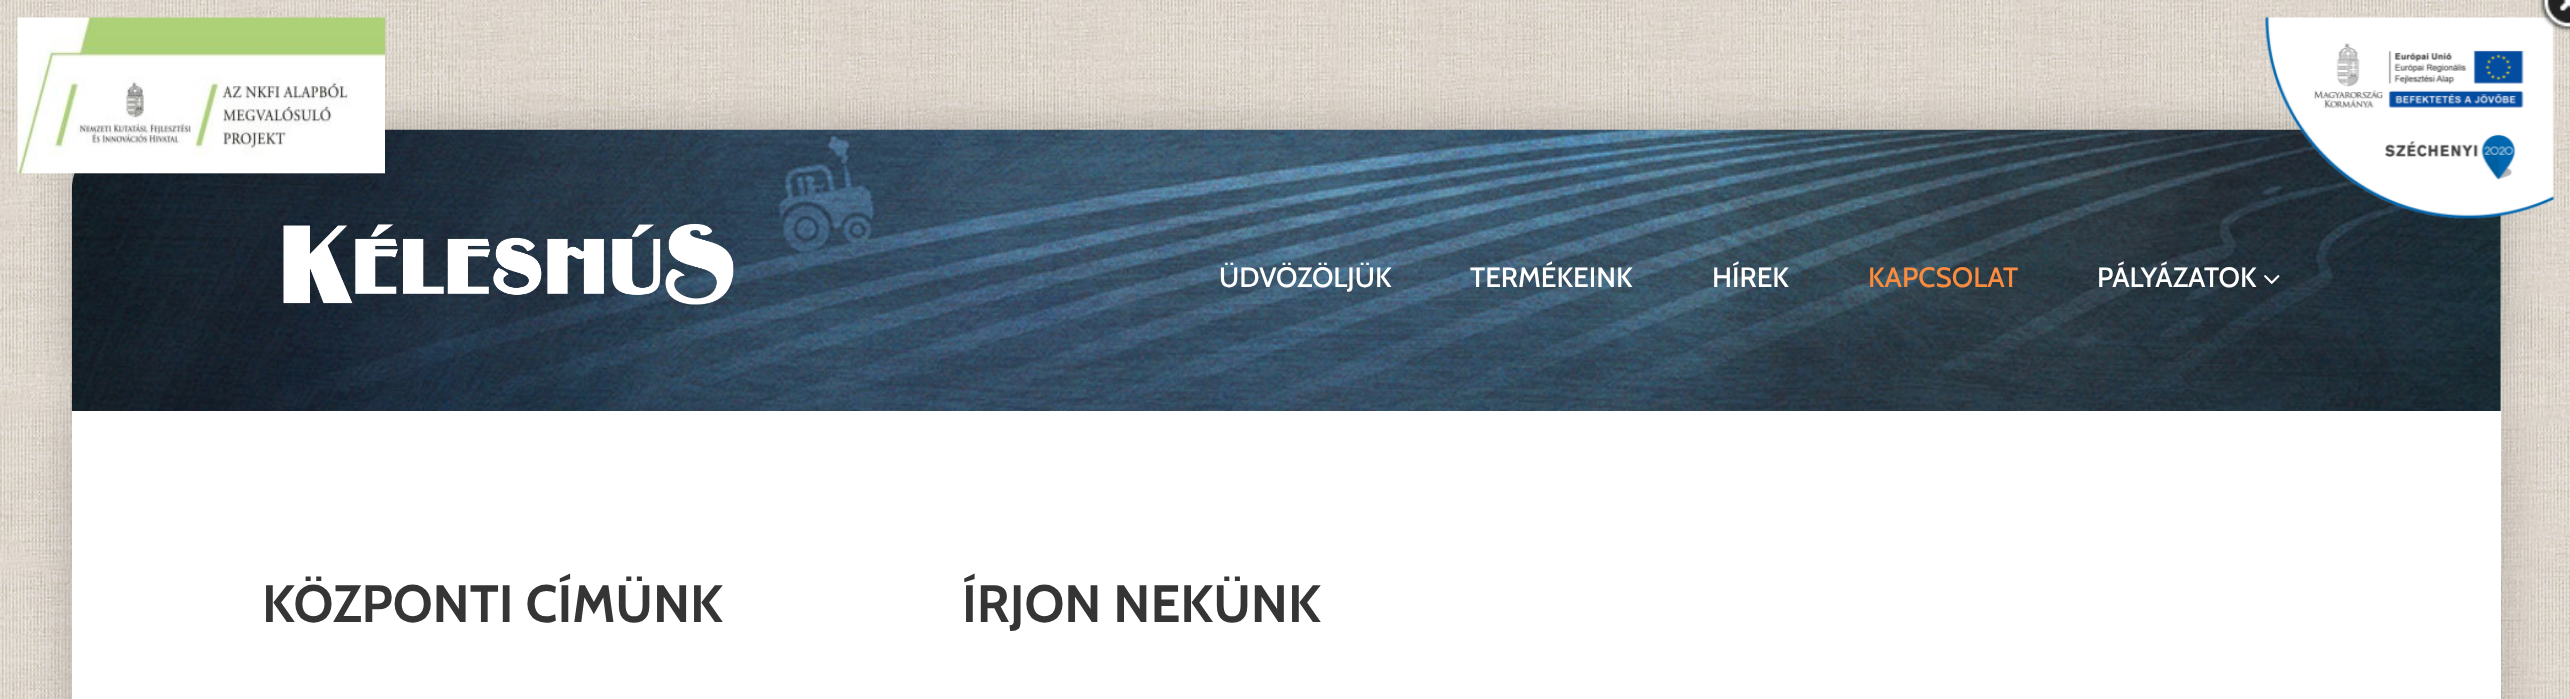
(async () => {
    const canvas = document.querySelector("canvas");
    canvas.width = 2570;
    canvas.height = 699;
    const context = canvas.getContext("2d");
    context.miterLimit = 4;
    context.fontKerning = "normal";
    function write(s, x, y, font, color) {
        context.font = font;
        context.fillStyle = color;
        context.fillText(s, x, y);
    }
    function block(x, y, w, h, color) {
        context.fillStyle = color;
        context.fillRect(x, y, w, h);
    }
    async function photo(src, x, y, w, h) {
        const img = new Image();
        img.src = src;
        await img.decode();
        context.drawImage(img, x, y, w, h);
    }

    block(0, 0, 2570, 699, "rgb(255, 255, 255)");
    await photo("media/1.png", 0, 0, 2570, 699);
    context.fillStyle = "rgba(0, 0, 0, 0.2)";
    context.filter = "blur(22px)";
    context.beginPath();
    context.rect(72, 411, 2429, 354);
    context.fill();
    context.filter = "none";
    block(72, 464, 2429, 235, "rgb(255, 255, 255)");
    context.fillStyle = "rgba(0, 0, 0, 0.2)";
    context.filter = "blur(22px)";
    context.beginPath();
    context.roundRect(72, 130, 2429, 281, 61);
    context.fill();
    context.filter = "none";
    await photo("media/5.png", 71, 129, 2430, 282);
    await photo("media/2.png", 17, 17, 368, 157);
    await photo("media/3.png", 2264, 17, 290, 202);
    await photo("media/4.png", 2539, 0, 31, 32);
    await photo("media/6.png", 283, 224, 451, 81);
    write("ÜDVÖZÖLJÜK", 1219, 287, "500 28px Cabin", "rgb(255, 255, 255)");
    write("TERMÉKEINK", 1470, 287, "500 28px Cabin", "rgb(255, 255, 255)");
    write("HÍREK", 1712, 287, "500 28px Cabin", "rgb(255, 255, 255)");
    write("KAPCSOLAT", 1868, 287, "500 28px Cabin", "rgb(249, 140, 62)");
    write("PÁLYÁZATOK", 2097, 287, "500 28px Cabin", "rgb(255, 255, 255)");
    await photo("media/7.png", 2264, 275, 16, 9);
    block(72, 411, 2429, 53, "rgb(255, 255, 255)");
    write("KÖZPONTI CÍMÜNK", 262, 622, "bold 52.5px Cabin", "rgb(53, 53, 53)");
    write("ÍRJON NEKÜNK", 962, 622, "bold 52.5px Cabin", "rgb(53, 53, 53)");
})();
